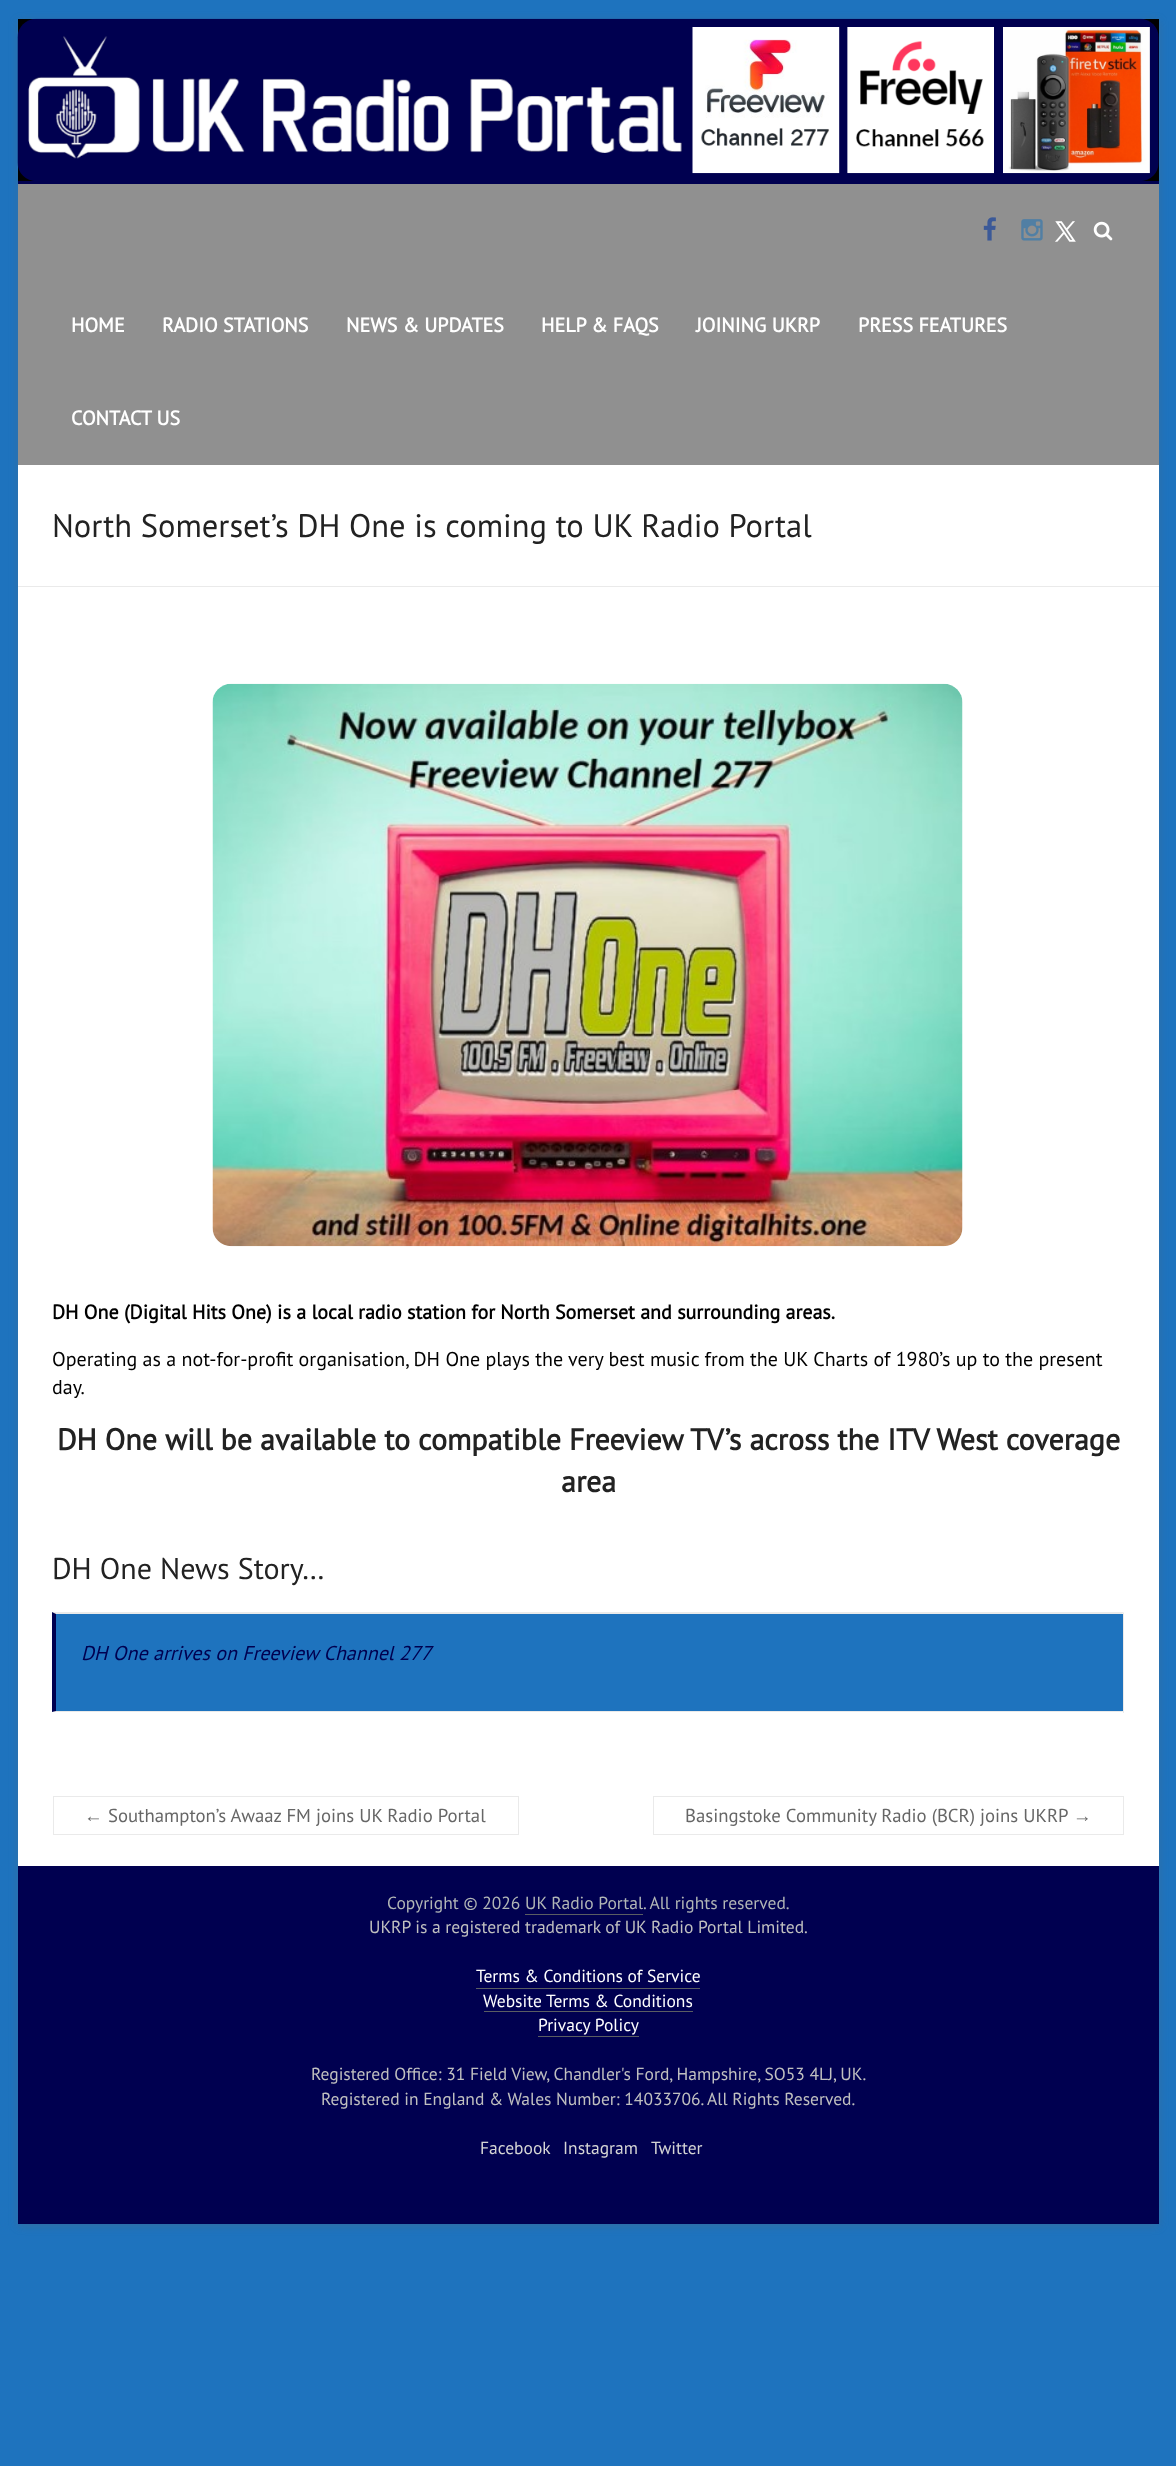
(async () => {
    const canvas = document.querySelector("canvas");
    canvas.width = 1176;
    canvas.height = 2466;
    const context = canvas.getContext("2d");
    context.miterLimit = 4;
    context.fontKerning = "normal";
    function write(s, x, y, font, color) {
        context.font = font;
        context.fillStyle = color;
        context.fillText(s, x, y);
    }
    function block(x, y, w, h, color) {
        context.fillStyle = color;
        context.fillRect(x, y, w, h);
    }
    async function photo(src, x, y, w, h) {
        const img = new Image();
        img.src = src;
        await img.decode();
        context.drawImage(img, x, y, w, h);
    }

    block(0, 0, 1176, 2466, "rgb(30, 115, 190)");
    context.fillStyle = "rgba(100, 100, 100, 0.3)";
    context.filter = "blur(4px)";
    context.beginPath();
    context.rect(18, 21, 1141, 2205);
    context.fill();
    context.filter = "none";
    block(18, 465, 1141, 1401, "rgb(255, 255, 255)");
    block(18, 19, 1141, 162, "rgb(0, 0, 0)");
    await photo("media/1.png", 17, 18, 1142, 163);
    block(18, 184, 1141, 281, "rgb(144, 144, 144)");
    block(18, 181, 1141, 3, "rgb(0, 0, 80)");
    await photo("media/2.png", 983, 217, 13, 24);
    await photo("media/3.png", 1021, 219, 22, 22);
    await photo("media/4.png", 1055, 221, 21, 21);
    await photo("media/5.png", 1093, 221, 20, 20);
    write("HOME", 71, 332, "bold 20px PT Sans", "rgb(255, 255, 255)");
    write("RADIO STATIONS", 162, 332, "bold 20px PT Sans", "rgb(255, 255, 255)");
    write("NEWS & UPDATES", 346, 332, "bold 20px PT Sans", "rgb(255, 255, 255)");
    write("HELP & FAQS", 541, 332, "bold 20px PT Sans", "rgb(255, 255, 255)");
    write("JOINING UKRP", 696, 332, "bold 20px PT Sans", "rgb(255, 255, 255)");
    write("PRESS FEATURES", 858, 332, "bold 20px PT Sans", "rgb(255, 255, 255)");
    write("CONTACT US", 71, 425, "bold 20px PT Sans", "rgb(255, 255, 255)");
    block(18, 586, 1141, 1, "rgb(234, 234, 234)");
    write("North Somerset’s DH One is coming to UK Radio Portal", 52, 537, "32.5px PT Sans", "rgb(34, 34, 34)");
    await photo("media/6.png", 212, 683, 751, 564);
    write("DH One (Digital Hits One) is a local radio station for North Somerset and surrounding areas.", 52, 1319, "bold 20px PT Sans", "rgb(0, 0, 0)");
    write("Operating as a not-for-profit organisation, DH One plays the very best music from the UK Charts of 1980’s up to the present", 52, 1366, "20px PT Sans", "rgb(0, 0, 0)");
    write("day.", 52, 1394, "20px PT Sans", "rgb(0, 0, 0)");
    write("DH One will be available to compatible Freeview TV’s across the ITV West coverage", 57, 1450, "bold 30px PT Sans", "rgb(34, 34, 34)");
    write("area", 561, 1492, "bold 30px PT Sans", "rgb(34, 34, 34)");
    write("DH One News Story…", 52, 1579, "30px PT Sans", "rgb(34, 34, 34)");
    block(56, 1614, 1067, 97, "rgb(30, 115, 190)");
    context.fillStyle = "rgb(234, 234, 234)";
    context.beginPath();
    context.moveTo(52, 1612);
    context.lineTo(1124, 1612);
    context.lineTo(1122, 1614);
    context.lineTo(56, 1614);
    context.closePath();
    context.fill();
    block(1123, 1613, 1, 100, "rgb(234, 234, 234)");
    context.beginPath();
    context.moveTo(1124, 1712);
    context.lineTo(52, 1712);
    context.lineTo(56, 1711);
    context.lineTo(1122, 1711);
    context.closePath();
    context.fill();
    context.fillStyle = "rgb(0, 0, 80)";
    context.beginPath();
    context.moveTo(52, 1712);
    context.lineTo(52, 1612);
    context.lineTo(56, 1614);
    context.lineTo(56, 1711);
    context.closePath();
    context.fill();
    write("DH One arrives on Freeview Channel 277", 81, 1660, "italic 20px PT Sans", "rgb(0, 0, 80)");
    write("←", 84, 1822, "18.75px Liberation Serif", "rgb(102, 102, 102)");
    block(53, 1834, 51, 1, "rgb(234, 234, 234)");
    block(53, 1796, 466, 1, "rgb(234, 234, 234)");
    block(53, 1796, 1, 39, "rgb(234, 234, 234)");
    block(518, 1796, 1, 39, "rgb(234, 234, 234)");
    block(104, 1834, 415, 1, "rgb(234, 234, 234)");
    write("Southampton’s Awaaz FM joins UK Radio Portal", 108, 1822, "18.75px PT Sans", "rgb(102, 102, 102)");
    write("Basingstoke Community Radio (BCR) joins UKRP", 685, 1822, "18.75px PT Sans", "rgb(102, 102, 102)");
    block(653, 1796, 471, 1, "rgb(234, 234, 234)");
    block(653, 1834, 420, 1, "rgb(234, 234, 234)");
    block(653, 1796, 1, 39, "rgb(234, 234, 234)");
    write("→", 1073, 1822, "18.75px Liberation Serif", "rgb(102, 102, 102)");
    block(1123, 1796, 1, 39, "rgb(234, 234, 234)");
    block(1073, 1834, 51, 1, "rgb(234, 234, 234)");
    block(18, 1866, 1141, 358, "rgb(0, 0, 80)");
    write("Copyright © 2026 UK Radio Portal. All rights reserved.", 387, 1909, "17.5px PT Sans", "rgb(177, 182, 182)");
    block(525, 1914, 118, 1, "rgb(90, 93, 98)");
    write("UKRP is a registered trademark of UK Radio Portal Limited.", 369, 1933, "17.5px PT Sans", "rgb(192, 192, 192)");
    write("Terms & Conditions of Service", 476, 1982, "17.5px PT Sans", "rgb(255, 255, 255)");
    block(476, 1988, 224, 1, "rgb(90, 93, 98)");
    write("Website Terms & Conditions", 483, 2007, "17.5px PT Sans", "rgb(255, 255, 255)");
    block(484, 2011, 209, 1, "rgb(90, 93, 98)");
    write("Privacy Policy", 538, 2031, "17.5px PT Sans", "rgb(255, 255, 255)");
    block(538, 2036, 101, 1, "rgb(90, 93, 98)");
    write("Registered Office: 31 Field View, Chandler's Ford, Hampshire, SO53 4LJ, UK.", 311, 2080, "17.5px PT Sans", "rgb(192, 192, 192)");
    write("Registered in England & Wales Number: 14033706. All Rights Reserved.", 321, 2105, "17.5px PT Sans", "rgb(192, 192, 192)");
    write("Facebook", 480, 2154, "17.5px PT Sans", "rgb(213, 213, 213)");
    write("Instagram", 563, 2154, "17.5px PT Sans", "rgb(213, 213, 213)");
    write("Twitter", 651, 2154, "17.5px PT Sans", "rgb(213, 213, 213)");
})();
